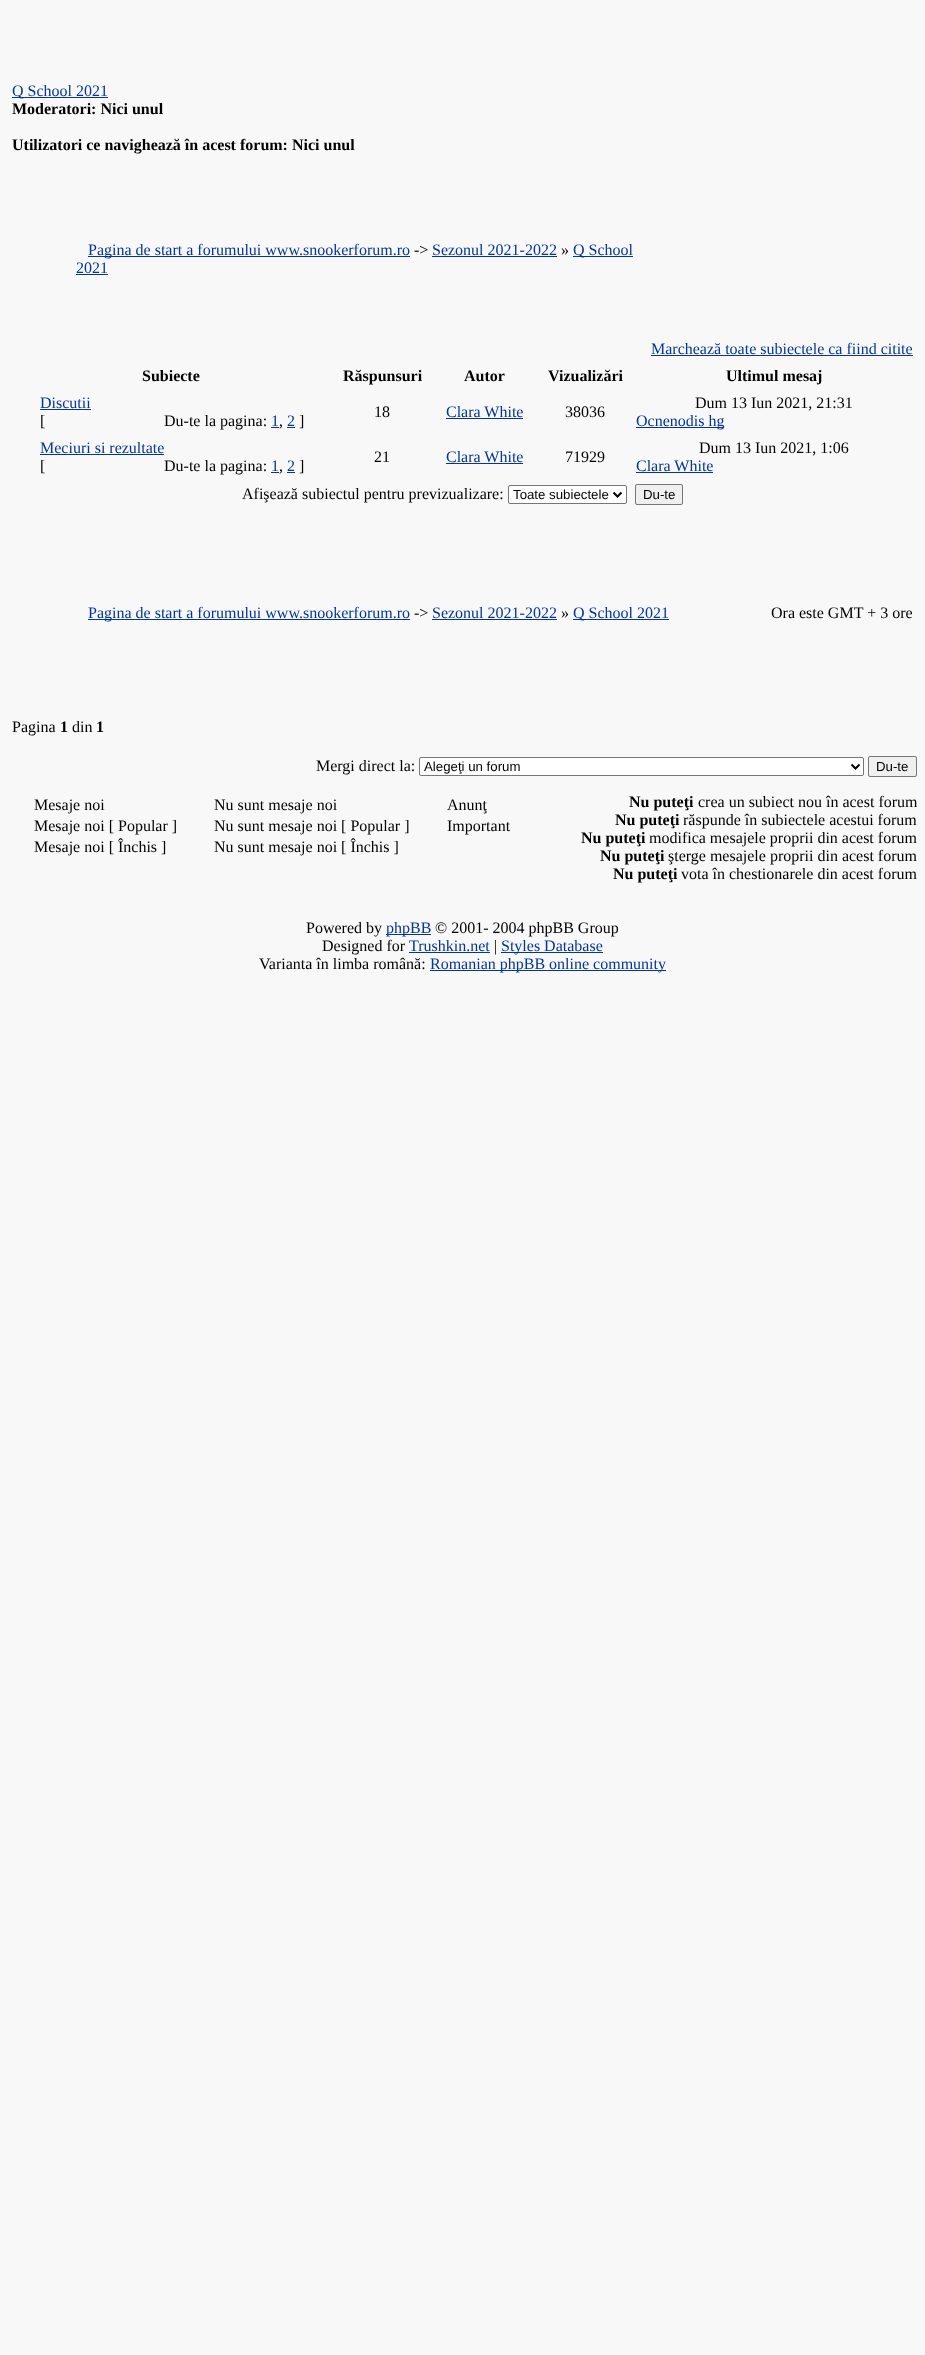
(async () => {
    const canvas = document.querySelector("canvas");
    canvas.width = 925;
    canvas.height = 2355;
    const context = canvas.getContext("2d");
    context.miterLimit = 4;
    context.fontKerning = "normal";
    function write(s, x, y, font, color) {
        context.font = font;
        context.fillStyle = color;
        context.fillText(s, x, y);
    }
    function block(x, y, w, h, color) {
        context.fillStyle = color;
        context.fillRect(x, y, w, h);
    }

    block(0, 0, 925, 2355, "rgb(248, 248, 248)");
    block(12, 97, 96, 1, "rgb(4, 54, 152)");
    write("Q School 2021", 12, 96, "16px Liberation Serif", "rgb(4, 54, 152)");
    write("Moderatori: Nici unul", 12, 114, "bold 16px Liberation Serif", "rgb(0, 0, 0)");
    write("Utilizatori ce navighează în acest forum: Nici unul", 12, 150, "bold 16px Liberation Serif", "rgb(0, 0, 0)");
    block(88, 256, 322, 1, "rgb(4, 54, 152)");
    write("Pagina de start a forumului www.snookerforum.ro", 88, 255, "16px Liberation Serif", "rgb(4, 54, 152)");
    write("->", 414, 255, "16px Liberation Serif", "rgb(0, 0, 0)");
    write("Sezonul 2021-2022", 432, 255, "16px Liberation Serif", "rgb(4, 54, 152)");
    block(432, 256, 125, 1, "rgb(4, 54, 152)");
    write("»", 561, 255, "16px Liberation Serif", "rgb(0, 0, 0)");
    block(573, 256, 60, 1, "rgb(4, 54, 152)");
    write("Q School", 573, 255, "16px Liberation Serif", "rgb(4, 54, 152)");
    write("2021", 76, 273, "16px Liberation Serif", "rgb(4, 54, 152)");
    block(76, 274, 32, 1, "rgb(4, 54, 152)");
    write("Marchează toate subiectele ca fiind citite", 651, 354, "16px Liberation Serif", "rgb(4, 54, 152)");
    block(651, 355, 262, 1, "rgb(4, 54, 152)");
    write("Subiecte", 142, 381, "bold 16px Liberation Serif", "rgb(0, 0, 0)");
    write("Răspunsuri", 343, 381, "bold 16px Liberation Serif", "rgb(0, 0, 0)");
    write("Autor", 464, 381, "bold 16px Liberation Serif", "rgb(0, 0, 0)");
    write("Vizualizări", 548, 381, "bold 16px Liberation Serif", "rgb(0, 0, 0)");
    write("Ultimul mesaj", 726, 381, "bold 16px Liberation Serif", "rgb(0, 0, 0)");
    write("Discutii", 40, 408, "16px Liberation Serif", "rgb(4, 54, 152)");
    block(40, 409, 51, 1, "rgb(4, 54, 152)");
    write("[", 40, 426, "16px Liberation Serif", "rgb(0, 0, 0)");
    write("Du-te la pagina:", 164, 426, "16px Liberation Serif", "rgb(0, 0, 0)");
    write("1", 271, 426, "16px Liberation Serif", "rgb(4, 54, 152)");
    write("2", 287, 426, "16px Liberation Serif", "rgb(4, 54, 152)");
    write("]", 299, 426, "16px Liberation Serif", "rgb(0, 0, 0)");
    write(",", 279, 426, "16px Liberation Serif", "rgb(0, 0, 0)");
    block(271, 427, 8, 1, "rgb(4, 54, 152)");
    block(287, 427, 8, 1, "rgb(4, 54, 152)");
    write("18", 374, 417, "16px Liberation Serif", "rgb(0, 0, 0)");
    write("Clara White", 446, 417, "16px Liberation Serif", "rgb(4, 54, 152)");
    block(446, 418, 77, 1, "rgb(4, 54, 152)");
    write("38036", 565, 417, "16px Liberation Serif", "rgb(0, 0, 0)");
    write("Dum 13 Iun 2021, 21:31", 695, 408, "16px Liberation Serif", "rgb(0, 0, 0)");
    block(636, 427, 88, 1, "rgb(4, 54, 152)");
    write("Ocnenodis hg", 636, 426, "16px Liberation Serif", "rgb(4, 54, 152)");
    write("Meciuri si rezultate", 40, 453, "16px Liberation Serif", "rgb(4, 54, 152)");
    block(40, 454, 124, 1, "rgb(4, 54, 152)");
    write("[", 40, 471, "16px Liberation Serif", "rgb(0, 0, 0)");
    write("Du-te la pagina:", 164, 471, "16px Liberation Serif", "rgb(0, 0, 0)");
    write("1", 271, 471, "16px Liberation Serif", "rgb(4, 54, 152)");
    write("2", 287, 471, "16px Liberation Serif", "rgb(4, 54, 152)");
    write("]", 299, 471, "16px Liberation Serif", "rgb(0, 0, 0)");
    write(",", 279, 471, "16px Liberation Serif", "rgb(0, 0, 0)");
    block(271, 472, 8, 1, "rgb(4, 54, 152)");
    block(287, 472, 8, 1, "rgb(4, 54, 152)");
    write("21", 374, 462, "16px Liberation Serif", "rgb(0, 0, 0)");
    write("Clara White", 446, 462, "16px Liberation Serif", "rgb(4, 54, 152)");
    block(446, 463, 77, 1, "rgb(4, 54, 152)");
    write("71929", 565, 462, "16px Liberation Serif", "rgb(0, 0, 0)");
    write("Dum 13 Iun 2021, 1:06", 699, 453, "16px Liberation Serif", "rgb(0, 0, 0)");
    write("Clara White", 636, 471, "16px Liberation Serif", "rgb(4, 54, 152)");
    block(636, 472, 77, 1, "rgb(4, 54, 152)");
    write("Afişează subiectul pentru previzualizare:", 242, 499, "16px Liberation Serif", "rgb(0, 0, 0)");
    context.fillStyle = "rgb(255, 255, 255)";
    context.beginPath();
    context.roundRect(508.5, 485.5, 118, 18, 1.5);
    context.fill();
    context.strokeStyle = "rgb(118, 118, 118)";
    context.stroke();
    context.beginPath();
    context.moveTo(613.5, 492.5);
    context.lineTo(617.5, 496.5);
    context.lineTo(621.5, 492.5);
    context.strokeStyle = "rgb(0, 0, 0)";
    context.lineWidth = 2;
    context.stroke();
    write("Toate subiectele", 513, 499, "13.25px Liberation Sans", "rgb(0, 0, 0)");
    context.fillStyle = "rgb(239, 239, 239)";
    context.beginPath();
    context.roundRect(635.5, 484.5, 47, 20, 1.5);
    context.fill();
    context.strokeStyle = "rgb(118, 118, 118)";
    context.lineWidth = 1;
    context.stroke();
    write("Du-te", 643, 499, "13.25px Liberation Sans", "rgb(0, 0, 0)");
    block(88, 619, 322, 1, "rgb(4, 54, 152)");
    write("Pagina de start a forumului www.snookerforum.ro", 88, 618, "16px Liberation Serif", "rgb(4, 54, 152)");
    write("->", 414, 618, "16px Liberation Serif", "rgb(0, 0, 0)");
    write("Sezonul 2021-2022", 432, 618, "16px Liberation Serif", "rgb(4, 54, 152)");
    block(432, 619, 125, 1, "rgb(4, 54, 152)");
    write("»", 561, 618, "16px Liberation Serif", "rgb(0, 0, 0)");
    block(573, 619, 96, 1, "rgb(4, 54, 152)");
    write("Q School 2021", 573, 618, "16px Liberation Serif", "rgb(4, 54, 152)");
    write("Ora este GMT + 3 ore", 771, 618, "16px Liberation Serif", "rgb(0, 0, 0)");
    write("Pagina", 12, 732, "16px Liberation Serif", "rgb(0, 0, 0)");
    write("1", 60, 732, "bold 16px Liberation Serif", "rgb(0, 0, 0)");
    write("din", 72, 732, "16px Liberation Serif", "rgb(0, 0, 0)");
    write("1", 96, 732, "bold 16px Liberation Serif", "rgb(0, 0, 0)");
    write("Mergi direct la:", 316, 771, "16px Liberation Serif", "rgb(0, 0, 0)");
    context.fillStyle = "rgb(255, 255, 255)";
    context.beginPath();
    context.roundRect(419.5, 757.5, 444, 18, 1.5);
    context.fill();
    context.stroke();
    context.beginPath();
    context.moveTo(851.5, 764.5);
    context.lineTo(855.5, 768.5);
    context.lineTo(859.5, 764.5);
    context.strokeStyle = "rgb(0, 0, 0)";
    context.lineWidth = 2;
    context.stroke();
    write("Alegeţi un forum", 424, 771, "13.25px Liberation Sans", "rgb(0, 0, 0)");
    context.fillStyle = "rgb(239, 239, 239)";
    context.beginPath();
    context.roundRect(868.5, 756.5, 48, 20, 1.5);
    context.fill();
    context.strokeStyle = "rgb(118, 118, 118)";
    context.lineWidth = 1;
    context.stroke();
    write("Du-te", 876, 771, "13.25px Liberation Sans", "rgb(0, 0, 0)");
    write("Mesaje noi", 34, 810, "16px Liberation Serif", "rgb(0, 0, 0)");
    write("Nu sunt mesaje noi", 214, 810, "16px Liberation Serif", "rgb(0, 0, 0)");
    write("Anunţ", 447, 810, "16px Liberation Serif", "rgb(0, 0, 0)");
    write("Mesaje noi [ Popular ]", 34, 831, "16px Liberation Serif", "rgb(0, 0, 0)");
    write("Nu sunt mesaje noi [ Popular ]", 214, 831, "16px Liberation Serif", "rgb(0, 0, 0)");
    write("Important", 447, 831, "16px Liberation Serif", "rgb(0, 0, 0)");
    write("Mesaje noi [ Închis ]", 34, 852, "16px Liberation Serif", "rgb(0, 0, 0)");
    write("Nu sunt mesaje noi [ Închis ]", 214, 852, "16px Liberation Serif", "rgb(0, 0, 0)");
    write("Nu puteţi", 629, 807, "bold 16px Liberation Serif", "rgb(0, 0, 0)");
    write("crea un subiect nou în acest forum", 698, 807, "16px Liberation Serif", "rgb(0, 0, 0)");
    write("Nu puteţi", 615, 825, "bold 16px Liberation Serif", "rgb(0, 0, 0)");
    write("răspunde în subiectele acestui forum", 683, 825, "16px Liberation Serif", "rgb(0, 0, 0)");
    write("Nu puteţi", 581, 843, "bold 16px Liberation Serif", "rgb(0, 0, 0)");
    write("modifica mesajele proprii din acest forum", 649, 843, "16px Liberation Serif", "rgb(0, 0, 0)");
    write("Nu puteţi", 600, 861, "bold 16px Liberation Serif", "rgb(0, 0, 0)");
    write("şterge mesajele proprii din acest forum", 668, 861, "16px Liberation Serif", "rgb(0, 0, 0)");
    write("Nu puteţi", 613, 879, "bold 16px Liberation Serif", "rgb(0, 0, 0)");
    write("vota în chestionarele din acest forum", 681, 879, "16px Liberation Serif", "rgb(0, 0, 0)");
    write("Powered by", 306, 933, "16px Liberation Serif", "rgb(0, 0, 0)");
    block(386, 934, 45, 1, "rgb(4, 54, 152)");
    write("phpBB", 386, 933, "16px Liberation Serif", "rgb(4, 54, 152)");
    write("© 2001- 2004 phpBB Group", 435, 933, "16px Liberation Serif", "rgb(0, 0, 0)");
    write("Designed for", 322, 951, "16px Liberation Serif", "rgb(0, 0, 0)");
    block(409, 952, 81, 1, "rgb(4, 54, 152)");
    write("Trushkin.net", 409, 951, "16px Liberation Serif", "rgb(4, 54, 152)");
    write("|", 494, 951, "16px Liberation Serif", "rgb(0, 0, 0)");
    block(501, 952, 102, 1, "rgb(4, 54, 152)");
    write("Styles Database", 501, 951, "16px Liberation Serif", "rgb(4, 54, 152)");
    write("Varianta în limba română:", 259, 969, "16px Liberation Serif", "rgb(0, 0, 0)");
    block(430, 970, 236, 1, "rgb(4, 54, 152)");
    write("Romanian phpBB online community", 430, 969, "16px Liberation Serif", "rgb(4, 54, 152)");
})();
